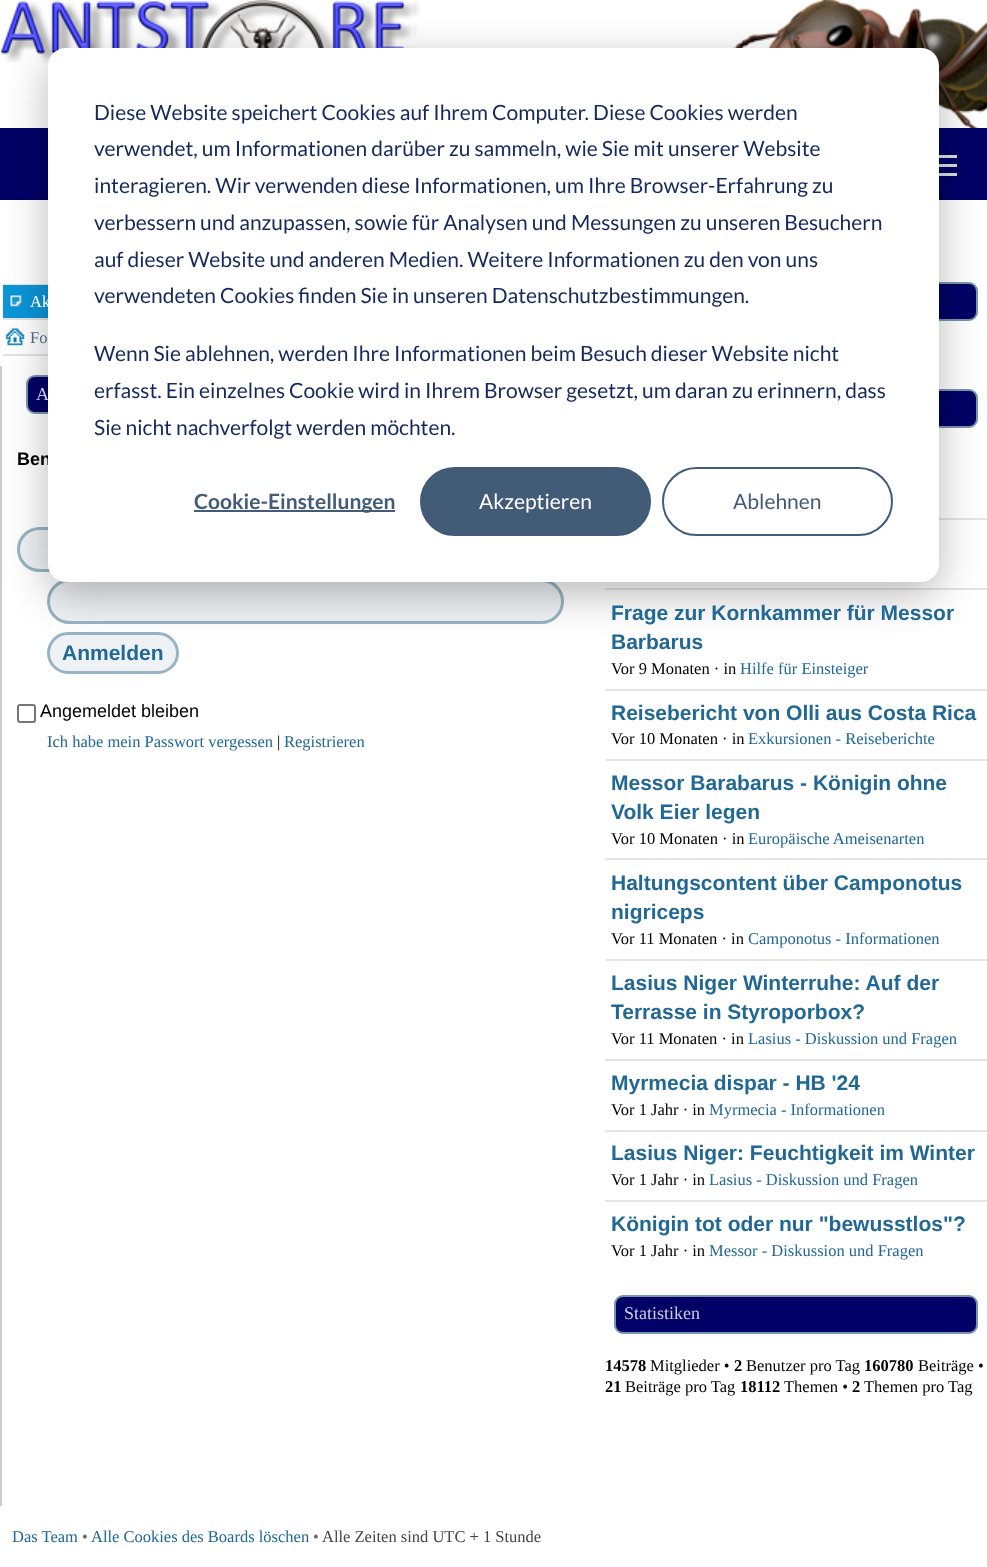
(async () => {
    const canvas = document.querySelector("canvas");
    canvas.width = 987;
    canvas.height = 1567;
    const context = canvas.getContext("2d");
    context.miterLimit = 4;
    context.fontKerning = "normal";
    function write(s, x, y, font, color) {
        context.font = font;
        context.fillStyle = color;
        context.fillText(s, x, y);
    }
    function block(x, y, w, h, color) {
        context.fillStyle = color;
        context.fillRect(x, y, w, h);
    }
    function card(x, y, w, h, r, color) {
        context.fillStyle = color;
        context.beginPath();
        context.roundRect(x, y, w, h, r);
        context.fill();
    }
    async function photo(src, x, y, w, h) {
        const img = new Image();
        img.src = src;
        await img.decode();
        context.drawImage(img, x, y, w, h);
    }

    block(0, 0, 987, 1567, "rgb(255, 255, 255)");
    await photo("media/1.png", 0, 0, 987, 128);
    block(0, 128, 987, 72, "rgb(0, 0, 102)");
    block(939, 155, 18, 3, "rgb(221, 221, 221)");
    block(939, 164, 18, 3, "rgb(221, 221, 221)");
    block(939, 173, 18, 3, "rgb(221, 221, 221)");
    block(3, 284, 45, 1, "rgb(228, 228, 228)");
    block(3, 318, 45, 2, "rgb(228, 228, 228)");
    block(3, 285, 45, 33, "rgb(12, 149, 217)");
    await photo("media/2.png", 10, 295, 12, 12);
    block(3, 354, 45, 2, "rgb(228, 228, 228)");
    await photo("media/3.png", 5, 328, 20, 18);
    block(0, 366, 2, 1140, "rgb(204, 204, 204)");
    context.fillStyle = "rgb(0, 0, 102)";
    context.beginPath();
    context.roundRect(27, 376, 538, 37, 8);
    context.fill();
    context.strokeStyle = "rgb(118, 151, 171)";
    context.lineWidth = 2;
    context.stroke();
    context.fillStyle = "rgb(238, 242, 245)";
    context.beginPath();
    context.roundRect(18.5, 528.5, 544, 42, 21);
    context.fill();
    context.strokeStyle = "rgb(152, 179, 195)";
    context.lineWidth = 3;
    context.stroke();
    context.beginPath();
    context.roundRect(48.5, 580.5, 514, 42, 21);
    context.fill();
    context.stroke();
    context.beginPath();
    context.roundRect(48.5, 633.5, 129, 39, 19.5);
    context.fill();
    context.stroke();
    context.fillStyle = "rgb(0, 0, 102)";
    context.beginPath();
    context.roundRect(615, 283, 362, 37, 8);
    context.fill();
    context.strokeStyle = "rgb(118, 151, 171)";
    context.lineWidth = 2;
    context.stroke();
    context.beginPath();
    context.roundRect(615, 390, 362, 37, 8);
    context.fill();
    context.stroke();
    block(939, 518, 48, 2, "rgb(228, 228, 228)");
    block(605, 588, 382, 2, "rgb(228, 228, 228)");
    context.fillStyle = "rgba(0, 0, 0, 0.28)";
    context.filter = "blur(21px)";
    context.beginPath();
    context.roundRect(48, 60, 891, 534, 18);
    context.fill();
    context.filter = "none";
    write("A", 36, 400, "18px Liberation Serif", "rgb(204, 204, 224)");
    write("Ben", 17, 465, "bold 18px Liberation Sans", "rgb(0, 0, 0)");
    card(48, 48, 891, 534, 18, "rgb(255, 255, 255)");
    write("Diese Website speichert Cookies auf Ihrem Computer. Diese Cookies werden", 94, 120, "21px Lato", "rgb(21, 41, 90)");
    write("verwendet, um Informationen darüber zu sammeln, wie Sie mit unserer Website", 94, 156, "21px Lato", "rgb(21, 41, 90)");
    write("interagieren. Wir verwenden diese Informationen, um Ihre Browser-Erfahrung zu", 94, 193, "21px Lato", "rgb(21, 41, 90)");
    write("verbessern und anzupassen, sowie für Analysen und Messungen zu unseren Besuchern", 94, 230, "21px Lato", "rgb(21, 41, 90)");
    write("auf dieser Website und anderen Medien. Weitere Informationen zu den von uns", 94, 267, "21px Lato", "rgb(21, 41, 90)");
    write("verwendeten Cookies finden Sie in unseren Datenschutzbestimmungen.", 94, 303, "21px Lato", "rgb(21, 41, 90)");
    write("Wenn Sie ablehnen, werden Ihre Informationen beim Besuch dieser Website nicht", 94, 361, "21px Lato", "rgb(21, 41, 90)");
    write("erfasst. Ein einzelnes Cookie wird in Ihrem Browser gesetzt, um daran zu erinnern, dass", 94, 398, "21px Lato", "rgb(21, 41, 90)");
    write("Sie nicht nachverfolgt werden möchten.", 94, 435, "21px Lato", "rgb(21, 41, 90)");
    block(194, 510, 201, 2, "rgb(66, 91, 118)");
    write("Cookie-Einstellungen", 194, 509, "bold 21px Lato", "rgb(66, 91, 118)");
    context.beginPath();
    context.roundRect(421, 468, 229, 67, 33.5);
    context.fill();
    context.strokeStyle = "rgb(66, 91, 118)";
    context.stroke();
    write("Akzeptieren", 479, 509, "21px Lato", "rgb(255, 255, 255)");
    context.beginPath();
    context.roundRect(663, 468, 229, 67, 33.5);
    context.stroke();
    write("Ablehnen", 733, 509, "21px Lato", "rgb(66, 91, 118)");
    write("Ak", 30, 307, "16.5px Liberation Serif", "rgb(255, 255, 255)");
    write("Fo", 30, 343, "16.5px Liberation Serif", "rgb(83, 100, 130)");
    write("Anmelden", 62, 660, "bold 21px Liberation Sans", "rgb(33, 104, 148)");
    context.beginPath();
    context.roundRect(18, 705, 17, 17, 2);
    context.strokeStyle = "rgb(118, 118, 118)";
    context.stroke();
    write("Angemeldet bleiben", 40, 717, "18px Liberation Sans", "rgb(0, 0, 0)");
    write("Ich habe mein Passwort vergessen", 47, 747, "16.5px Liberation Serif", "rgb(33, 104, 148)");
    write("|", 277, 747, "16.5px Liberation Serif", "rgb(0, 0, 0)");
    write("Registrieren", 284, 747, "16.5px Liberation Serif", "rgb(33, 104, 148)");
    write("Frage zur Kornkammer für Messor", 611, 620, "bold 21px Liberation Sans", "rgb(33, 104, 148)");
    write("Barbarus", 611, 649, "bold 21px Liberation Sans", "rgb(33, 104, 148)");
    write("Vor 9 Monaten · in", 611, 674, "16.5px Liberation Serif", "rgb(0, 0, 0)");
    write("Hilfe für Einsteiger", 740, 674, "16.5px Liberation Serif", "rgb(33, 104, 148)");
    block(605, 689, 382, 2, "rgb(228, 228, 228)");
    write("Reisebericht von Olli aus Costa Rica", 611, 720, "bold 21px Liberation Sans", "rgb(33, 104, 148)");
    write("Vor 10 Monaten · in", 611, 744, "16.5px Liberation Serif", "rgb(0, 0, 0)");
    write("Exkursionen - Reiseberichte", 748, 744, "16.5px Liberation Serif", "rgb(33, 104, 148)");
    block(605, 759, 382, 2, "rgb(228, 228, 228)");
    write("Messor Barabarus - Königin ohne", 611, 790, "bold 21px Liberation Sans", "rgb(33, 104, 148)");
    write("Volk Eier legen", 611, 819, "bold 21px Liberation Sans", "rgb(33, 104, 148)");
    write("Vor 10 Monaten · in", 611, 844, "16.5px Liberation Serif", "rgb(0, 0, 0)");
    write("Europäische Ameisenarten", 748, 844, "16.5px Liberation Serif", "rgb(33, 104, 148)");
    block(605, 858, 382, 2, "rgb(228, 228, 228)");
    write("Haltungscontent über Camponotus", 611, 890, "bold 21px Liberation Sans", "rgb(33, 104, 148)");
    write("nigriceps", 611, 919, "bold 21px Liberation Sans", "rgb(33, 104, 148)");
    write("Vor 11 Monaten · in", 611, 944, "16.5px Liberation Serif", "rgb(0, 0, 0)");
    write("Camponotus - Informationen", 748, 944, "16.5px Liberation Serif", "rgb(33, 104, 148)");
    block(605, 959, 382, 2, "rgb(228, 228, 228)");
    write("Lasius Niger Winterruhe: Auf der", 611, 990, "bold 21px Liberation Sans", "rgb(33, 104, 148)");
    context.save();
    context.beginPath();
    context.rect(611, 969, 370, 59);
    context.clip();
    write("Terrasse in Styroporbox?", 611, 1019, "bold 21px Liberation Sans", "rgb(33, 104, 148)");
    context.restore();
    write("Vor 11 Monaten · in", 611, 1044, "16.5px Liberation Serif", "rgb(0, 0, 0)");
    write("Lasius - Diskussion und Fragen", 748, 1044, "16.5px Liberation Serif", "rgb(33, 104, 148)");
    block(605, 1059, 382, 2, "rgb(228, 228, 228)");
    write("Myrmecia dispar - HB '24", 611, 1090, "bold 21px Liberation Sans", "rgb(33, 104, 148)");
    write("Vor 1 Jahr · in", 611, 1115, "16.5px Liberation Serif", "rgb(0, 0, 0)");
    write("Myrmecia - Informationen", 709, 1115, "16.5px Liberation Serif", "rgb(33, 104, 148)");
    block(605, 1130, 382, 2, "rgb(228, 228, 228)");
    write("Lasius Niger: Feuchtigkeit im Winter", 611, 1160, "bold 21px Liberation Sans", "rgb(33, 104, 148)");
    write("Vor 1 Jahr · in", 611, 1185, "16.5px Liberation Serif", "rgb(0, 0, 0)");
    write("Lasius - Diskussion und Fragen", 709, 1185, "16.5px Liberation Serif", "rgb(33, 104, 148)");
    block(605, 1200, 382, 2, "rgb(228, 228, 228)");
    write("Königin tot oder nur \"bewusstlos\"?", 611, 1231, "bold 21px Liberation Sans", "rgb(33, 104, 148)");
    write("Vor 1 Jahr · in", 611, 1256, "16.5px Liberation Serif", "rgb(0, 0, 0)");
    write("Messor - Diskussion und Fragen", 709, 1256, "16.5px Liberation Serif", "rgb(33, 104, 148)");
    context.fillStyle = "rgb(0, 0, 102)";
    context.beginPath();
    context.roundRect(615, 1296, 362, 37, 8);
    context.fill();
    context.strokeStyle = "rgb(118, 151, 171)";
    context.stroke();
    write("Statistiken", 624, 1319, "18px Liberation Serif", "rgb(204, 204, 224)");
    write("14578", 605, 1371, "bold 16.5px Liberation Serif", "rgb(0, 0, 0)");
    write("Mitglieder •", 650, 1371, "16.5px Liberation Serif", "rgb(0, 0, 0)");
    write("2", 734, 1371, "bold 16.5px Liberation Serif", "rgb(0, 0, 0)");
    write("Benutzer pro Tag", 746, 1371, "16.5px Liberation Serif", "rgb(0, 0, 0)");
    write("160780", 864, 1371, "bold 16.5px Liberation Serif", "rgb(0, 0, 0)");
    write("Beiträge •", 918, 1371, "16.5px Liberation Serif", "rgb(0, 0, 0)");
    write("21", 605, 1392, "bold 16.5px Liberation Serif", "rgb(0, 0, 0)");
    write("Beiträge pro Tag", 625, 1392, "16.5px Liberation Serif", "rgb(0, 0, 0)");
    write("18112", 740, 1392, "bold 16.5px Liberation Serif", "rgb(0, 0, 0)");
    write("Themen •", 784, 1392, "16.5px Liberation Serif", "rgb(0, 0, 0)");
    write("2", 852, 1392, "bold 16.5px Liberation Serif", "rgb(0, 0, 0)");
    write("Themen pro Tag", 864, 1392, "16.5px Liberation Serif", "rgb(0, 0, 0)");
    write("Das Team", 12, 1542, "16.5px Liberation Serif", "rgb(33, 104, 148)");
    write("•", 82, 1542, "16.5px Liberation Serif", "rgb(102, 102, 102)");
    write("Alle Cookies des Boards löschen", 91, 1542, "16.5px Liberation Serif", "rgb(33, 104, 148)");
    write("•", 313, 1542, "16.5px Liberation Serif", "rgb(102, 102, 102)");
    write("Alle Zeiten sind UTC + 1 Stunde", 322, 1542, "16.5px Liberation Serif", "rgb(68, 68, 68)");
})();
